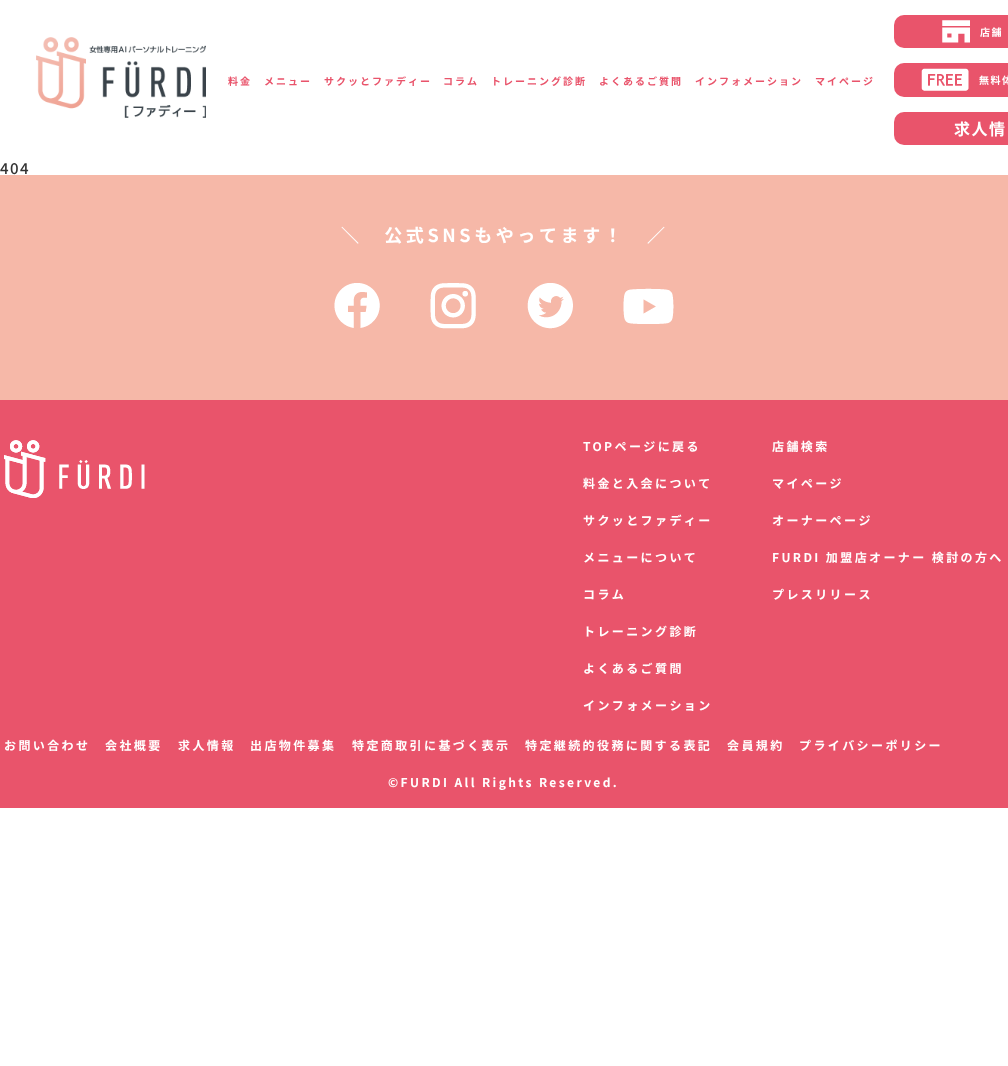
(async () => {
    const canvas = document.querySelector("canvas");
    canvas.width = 1008;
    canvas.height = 1066;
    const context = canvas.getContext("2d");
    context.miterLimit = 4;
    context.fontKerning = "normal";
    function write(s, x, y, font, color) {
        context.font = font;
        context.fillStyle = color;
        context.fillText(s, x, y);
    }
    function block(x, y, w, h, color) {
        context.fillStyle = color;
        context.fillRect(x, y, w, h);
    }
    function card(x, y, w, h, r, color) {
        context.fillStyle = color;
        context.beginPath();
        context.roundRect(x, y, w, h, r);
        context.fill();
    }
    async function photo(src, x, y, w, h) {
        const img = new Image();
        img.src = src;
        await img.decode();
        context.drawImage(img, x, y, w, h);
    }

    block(0, 0, 1008, 1066, "rgb(255, 255, 255)");
    await photo("media/1.png", 36, 37, 170, 81);
    context.letterSpacing = "2px";
    write("料金", 228, 85, "bold 10px Noto Sans JP", "rgb(233, 84, 107)");
    write("メニュー", 264, 85, "bold 10px Noto Sans JP", "rgb(233, 84, 107)");
    write("サクッとファディー", 324, 85, "bold 10px Noto Sans JP", "rgb(233, 84, 107)");
    write("コラム", 443, 85, "bold 10px Noto Sans JP", "rgb(233, 84, 107)");
    write("トレーニング診断", 491, 85, "bold 10px Noto Sans JP", "rgb(233, 84, 107)");
    write("よくあるご質問", 599, 85, "bold 10px Noto Sans JP", "rgb(233, 84, 107)");
    write("インフォメーション", 695, 85, "bold 10px Noto Sans JP", "rgb(233, 84, 107)");
    write("マイページ", 815, 85, "bold 10px Noto Sans JP", "rgb(233, 84, 107)");
    card(894, 15, 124, 33, 10, "rgb(233, 84, 107)");
    await photo("media/2.png", 942, 20, 28, 23);
    context.letterSpacing = "1.5px";
    write("店舗", 980, 36, "bold 10px Noto Sans JP", "rgb(255, 255, 255)");
    card(894, 63, 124, 34, 10, "rgb(233, 84, 107)");
    await photo("media/3.png", 921, 68, 48, 23);
    write("無料体", 979, 84, "bold 10px Noto Sans JP", "rgb(255, 255, 255)");
    card(894, 112, 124, 33, 10, "rgb(233, 84, 107)");
    write("求人情", 954, 135, "bold 16px Noto Sans JP", "rgb(255, 255, 255)");
    write("404", 0, 174, "500 15px Noto Sans JP", "rgb(51, 51, 51)");
    block(0, 175, 1008, 225, "rgb(246, 184, 168)");
    context.letterSpacing = "3.6px";
    write("＼　公式SNSもやってます！　／", 341, 242, "bold 18px Noto Sans JP", "rgb(255, 255, 255)");
    await photo("media/4.png", 334, 283, 46, 45);
    await photo("media/5.png", 430, 283, 46, 46);
    await photo("media/6.png", 527, 283, 46, 46);
    await photo("media/7.png", 623, 288, 51, 36);
    block(0, 400, 1008, 408, "rgb(233, 84, 107)");
    await photo("media/8.png", 4, 440, 141, 58);
    context.letterSpacing = "2.4px";
    write("TOPページに戻る", 583, 451, "bold 12px Noto Sans JP", "rgb(255, 255, 255)");
    write("料金と入会について", 583, 488, "bold 12px Noto Sans JP", "rgb(255, 255, 255)");
    write("サクッとファディー", 583, 525, "bold 12px Noto Sans JP", "rgb(255, 255, 255)");
    write("メニューについて", 583, 562, "bold 12px Noto Sans JP", "rgb(255, 255, 255)");
    write("コラム", 583, 599, "bold 12px Noto Sans JP", "rgb(255, 255, 255)");
    write("トレーニング診断", 583, 636, "bold 12px Noto Sans JP", "rgb(255, 255, 255)");
    write("よくあるご質問", 583, 673, "bold 12px Noto Sans JP", "rgb(255, 255, 255)");
    write("インフォメーション", 583, 710, "bold 12px Noto Sans JP", "rgb(255, 255, 255)");
    write("店舗検索", 772, 451, "bold 12px Noto Sans JP", "rgb(255, 255, 255)");
    write("マイページ", 772, 488, "bold 12px Noto Sans JP", "rgb(255, 255, 255)");
    write("オーナーページ", 772, 525, "bold 12px Noto Sans JP", "rgb(255, 255, 255)");
    write("FURDI 加盟店オーナー 検討の方へ", 772, 562, "bold 12px Noto Sans JP", "rgb(255, 255, 255)");
    write("プレスリリース", 772, 599, "bold 12px Noto Sans JP", "rgb(255, 255, 255)");
    write("お問い合わせ", 4, 750, "bold 12px Noto Sans JP", "rgb(255, 255, 255)");
    write("会社概要", 105, 750, "bold 12px Noto Sans JP", "rgb(255, 255, 255)");
    write("求人情報", 178, 750, "bold 12px Noto Sans JP", "rgb(255, 255, 255)");
    write("出店物件募集", 250, 750, "bold 12px Noto Sans JP", "rgb(255, 255, 255)");
    write("特定商取引に基づく表示", 352, 750, "bold 12px Noto Sans JP", "rgb(255, 255, 255)");
    write("特定継続的役務に関する表記", 525, 750, "bold 12px Noto Sans JP", "rgb(255, 255, 255)");
    write("会員規約", 727, 750, "bold 12px Noto Sans JP", "rgb(255, 255, 255)");
    write("プライバシーポリシー", 799, 750, "bold 12px Noto Sans JP", "rgb(255, 255, 255)");
    write("©FURDI All Rights Reserved.", 388, 787, "bold 12px Noto Sans JP", "rgb(255, 255, 255)");
})();
